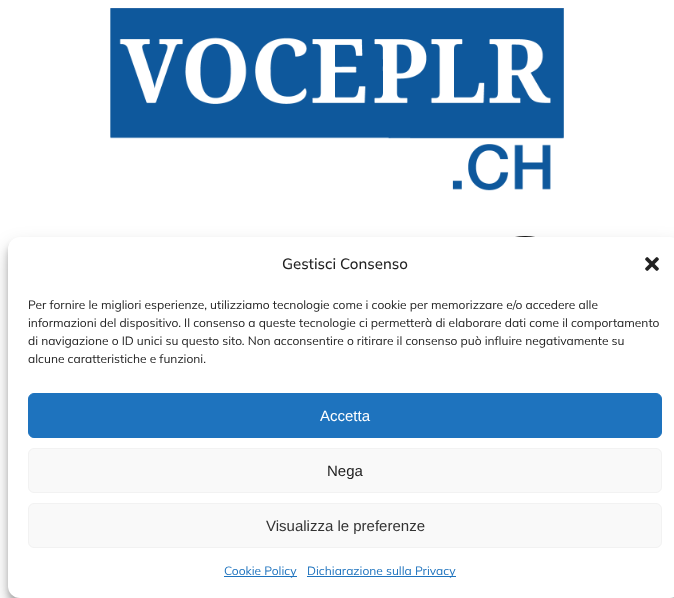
(async () => {
    const canvas = document.querySelector("canvas");
    canvas.width = 674;
    canvas.height = 598;
    const context = canvas.getContext("2d");
    context.miterLimit = 4;
    context.fontKerning = "normal";
    function write(s, x, y, font, color) {
        context.font = font;
        context.fillStyle = color;
        context.fillText(s, x, y);
    }
    function block(x, y, w, h, color) {
        context.fillStyle = color;
        context.fillRect(x, y, w, h);
    }
    function card(x, y, w, h, r, color) {
        context.fillStyle = color;
        context.beginPath();
        context.roundRect(x, y, w, h, r);
        context.fill();
    }
    async function photo(src, x, y, w, h) {
        const img = new Image();
        img.src = src;
        await img.decode();
        context.drawImage(img, x, y, w, h);
    }

    block(0, 0, 674, 598, "rgb(255, 255, 255)");
    await photo("media/1.png", 110, 8, 454, 183);
    await photo("media/2.png", 515, 236, 20, 1);
    context.fillStyle = "rgba(0, 0, 0, 0.23)";
    context.filter = "blur(3px)";
    context.beginPath();
    context.roundRect(8, 243, 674, 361, 12);
    context.fill();
    context.filter = "none";
    context.fillStyle = "rgba(0, 0, 0, 0.19)";
    context.filter = "blur(10px)";
    context.beginPath();
    context.roundRect(8, 247, 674, 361, 12);
    context.fill();
    context.filter = "none";
    card(8, 237, 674, 361, 12, "rgb(255, 255, 255)");
    write("Gestisci Consenso", 282, 269, "500 15px Mulish", "rgb(34, 34, 34)");
    await photo("media/3.png", 645, 257, 14, 14);
    write("Per fornire le migliori esperienze, utilizziamo tecnologie come i cookie per memorizzare e/o accedere alle", 28, 309, "200 12px Mulish", "rgb(34, 34, 34)");
    write("informazioni del dispositivo. Il consenso a queste tecnologie ci permetterà di elaborare dati come il comportamento", 28, 327, "200 12px Mulish", "rgb(34, 34, 34)");
    write("di navigazione o ID unici su questo sito. Non acconsentire o ritirare il consenso può influire negativamente su", 28, 345, "200 12px Mulish", "rgb(34, 34, 34)");
    write("alcune caratteristiche e funzioni.", 28, 363, "200 12px Mulish", "rgb(34, 34, 34)");
    context.fillStyle = "rgb(30, 115, 190)";
    context.beginPath();
    context.roundRect(28.5, 393.5, 633, 44, 5.5);
    context.fill();
    context.strokeStyle = "rgb(30, 115, 190)";
    context.stroke();
    write("Accetta", 320, 421, "15px Liberation Sans", "rgb(255, 255, 255)");
    context.fillStyle = "rgb(249, 249, 249)";
    context.beginPath();
    context.roundRect(28.5, 448.5, 633, 44, 5.5);
    context.fill();
    context.strokeStyle = "rgb(242, 242, 242)";
    context.stroke();
    write("Nega", 327, 476, "15px Liberation Sans", "rgb(34, 34, 34)");
    context.fillStyle = "rgb(249, 249, 249)";
    context.beginPath();
    context.roundRect(28.5, 503.5, 633, 44, 5.5);
    context.fill();
    context.stroke();
    write("Visualizza le preferenze", 266, 531, "15px Liberation Sans", "rgb(51, 51, 51)");
    block(224, 576, 73, 1, "rgb(30, 115, 190)");
    write("Cookie Policy", 224, 575, "200 12px Mulish", "rgb(30, 115, 190)");
    block(307, 576, 149, 1, "rgb(30, 115, 190)");
    write("Dichiarazione sulla Privacy", 307, 575, "200 12px Mulish", "rgb(30, 115, 190)");
})();
